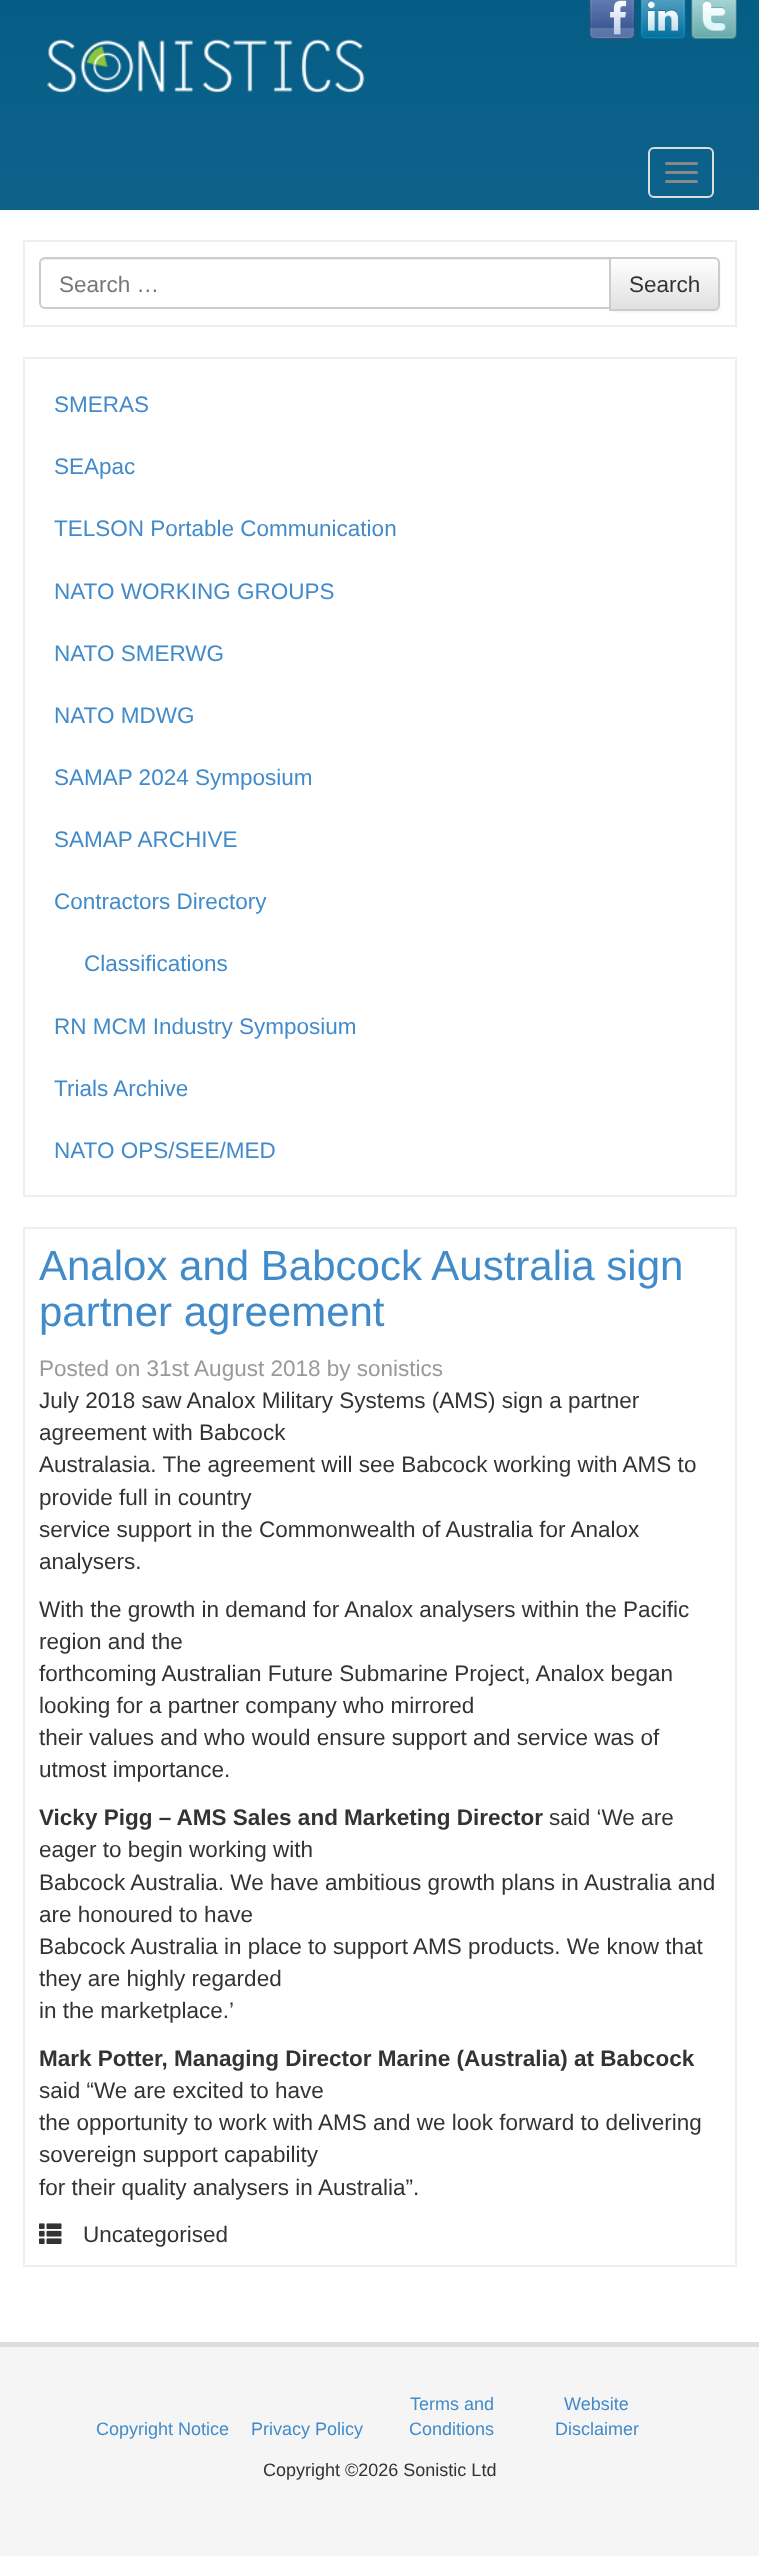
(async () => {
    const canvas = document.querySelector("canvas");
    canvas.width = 759;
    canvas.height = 2556;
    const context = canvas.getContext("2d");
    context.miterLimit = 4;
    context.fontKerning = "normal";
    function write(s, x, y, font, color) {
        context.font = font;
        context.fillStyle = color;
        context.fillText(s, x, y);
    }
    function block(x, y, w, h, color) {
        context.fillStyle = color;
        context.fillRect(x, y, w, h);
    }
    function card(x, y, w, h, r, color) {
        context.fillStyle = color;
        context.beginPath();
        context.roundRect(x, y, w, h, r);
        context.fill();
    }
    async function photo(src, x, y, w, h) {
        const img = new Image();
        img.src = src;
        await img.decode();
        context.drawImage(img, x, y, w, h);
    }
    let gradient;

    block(0, 0, 759, 2556, "rgb(255, 255, 255)");
    gradient = context.createLinearGradient(379, -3, 380, 2553);
    gradient.addColorStop(0, "rgb(5, 93, 134)");
    gradient.addColorStop(1, "rgb(102, 157, 185)");
    context.fillStyle = gradient;
    context.fillRect(0, 0, 759, 210);
    await photo("media/1.png", 589, 0, 46, 39);
    await photo("media/2.png", 640, 0, 46, 39);
    await photo("media/3.png", 691, 0, 46, 39);
    await photo("media/4.png", 47, 39, 318, 55);
    context.beginPath();
    context.roundRect(649, 148, 64, 49, 5);
    context.strokeStyle = "rgb(221, 221, 221)";
    context.lineWidth = 2;
    context.stroke();
    card(665, 162, 33, 3, 1.5, "rgb(136, 136, 136)");
    card(665, 171, 33, 3, 1.5, "rgb(136, 136, 136)");
    card(665, 180, 33, 3, 1.5, "rgb(136, 136, 136)");
    context.strokeStyle = "rgb(238, 238, 238)";
    context.strokeRect(24, 241, 712, 85);
    context.fillStyle = "rgba(0, 0, 0, 0.07)";
    context.filter = "blur(1px)";
    context.beginPath();
    context.roundRect(609, 258, 111, 54, 6);
    context.fill();
    context.filter = "none";
    context.save();
    context.beginPath();
    context.roundRect(609, 257, 111, 54, [0, 6, 6, 0]);
    context.clip();
    gradient = context.createLinearGradient(665, 258, 665, 309);
    gradient.addColorStop(0, "rgb(255, 255, 255)");
    gradient.addColorStop(1, "rgb(224, 224, 224)");
    context.fillStyle = gradient;
    context.fillRect(611, 258, 109, 51);
    context.restore();
    context.fillStyle = "rgba(255, 255, 255, 0.15)";
    context.beginPath();
    context.moveTo(611, 258);
    context.lineTo(611, 260);
    context.lineTo(714, 260);
    context.bezierCurveTo(719, 260, 718, 268, 718, 271);
    context.lineTo(718, 307);
    context.bezierCurveTo(719, 306, 719, 305, 719, 304);
    context.lineTo(719, 263);
    context.bezierCurveTo(719, 260, 717, 258, 714, 258);
    context.closePath();
    context.fill();
    context.beginPath();
    context.roundRect(610, 258, 109, 52, [0, 5, 5, 0]);
    context.strokeStyle = "rgb(204, 204, 204)";
    context.stroke();
    context.fillStyle = "rgb(255, 255, 255)";
    context.beginPath();
    context.roundRect(39, 257, 572, 52, [6, 0, 0, 6]);
    context.fill();
    context.fillStyle = "rgb(236, 236, 236)";
    context.beginPath();
    context.moveTo(45, 260);
    context.lineTo(609, 260);
    context.lineTo(609, 258);
    context.lineTo(46, 258);
    context.bezierCurveTo(44, 258, 42, 260, 41, 262);
    context.bezierCurveTo(42, 261, 44, 260, 45, 260);
    context.closePath();
    context.fill();
    context.beginPath();
    context.roundRect(40, 258, 570, 50, [5, 0, 0, 5]);
    context.stroke();
    write("Search …", 59, 292, "22.5px Liberation Sans", "rgb(119, 119, 119)");
    write("Search", 629, 292, "22.5px Liberation Sans", "rgb(51, 51, 51)");
    context.strokeStyle = "rgb(238, 238, 238)";
    context.strokeRect(24, 358, 712, 838);
    write("SMERAS", 54, 412, "22.5px Liberation Sans", "rgb(66, 139, 202)");
    write("SEApac", 54, 474, "22.5px Liberation Sans", "rgb(66, 139, 202)");
    write("TELSON Portable Communication", 54, 536, "22.5px Liberation Sans", "rgb(66, 139, 202)");
    write("NATO WORKING GROUPS", 54, 599, "22.5px Liberation Sans", "rgb(66, 139, 202)");
    write("NATO SMERWG", 54, 661, "22.5px Liberation Sans", "rgb(66, 139, 202)");
    write("NATO MDWG", 54, 723, "22.5px Liberation Sans", "rgb(66, 139, 202)");
    write("SAMAP 2024 Symposium", 54, 785, "22.5px Liberation Sans", "rgb(66, 139, 202)");
    write("SAMAP ARCHIVE", 54, 847, "22.5px Liberation Sans", "rgb(66, 139, 202)");
    write("Contractors Directory", 54, 909, "22.5px Liberation Sans", "rgb(66, 139, 202)");
    write("Classifications", 84, 971, "22.5px Liberation Sans", "rgb(66, 139, 202)");
    write("RN MCM Industry Symposium", 54, 1034, "22.5px Liberation Sans", "rgb(66, 139, 202)");
    write("Trials Archive", 54, 1096, "22.5px Liberation Sans", "rgb(66, 139, 202)");
    write("NATO OPS/SEE/MED", 54, 1158, "22.5px Liberation Sans", "rgb(66, 139, 202)");
    context.strokeRect(24, 1228, 712, 1038);
    write("Analox and Babcock Australia sign", 39, 1280, "42px Liberation Sans", "rgb(66, 139, 202)");
    write("partner agreement", 39, 1326, "42px Liberation Sans", "rgb(66, 139, 202)");
    write("Posted on 31st August 2018 by sonistics", 39, 1376, "22.5px Liberation Sans", "rgb(153, 153, 153)");
    write("July 2018 saw Analox Military Systems (AMS) sign a partner", 39, 1408, "22.5px Liberation Sans", "rgb(51, 51, 51)");
    write("agreement with Babcock", 39, 1440, "22.5px Liberation Sans", "rgb(51, 51, 51)");
    write("Australasia. The agreement will see Babcock working with AMS to", 39, 1472, "22.5px Liberation Sans", "rgb(51, 51, 51)");
    write("provide full in country", 39, 1505, "22.5px Liberation Sans", "rgb(51, 51, 51)");
    write("service support in the Commonwealth of Australia for Analox", 39, 1537, "22.5px Liberation Sans", "rgb(51, 51, 51)");
    write("analysers.", 39, 1569, "22.5px Liberation Sans", "rgb(51, 51, 51)");
    write("With the growth in demand for Analox analysers within the Pacific", 39, 1617, "22.5px Liberation Sans", "rgb(51, 51, 51)");
    write("region and the", 39, 1649, "22.5px Liberation Sans", "rgb(51, 51, 51)");
    write("forthcoming Australian Future Submarine Project, Analox began", 39, 1681, "22.5px Liberation Sans", "rgb(51, 51, 51)");
    write("looking for a partner company who mirrored", 39, 1713, "22.5px Liberation Sans", "rgb(51, 51, 51)");
    write("their values and who would ensure support and service was of", 39, 1745, "22.5px Liberation Sans", "rgb(51, 51, 51)");
    write("utmost importance.", 39, 1777, "22.5px Liberation Sans", "rgb(51, 51, 51)");
    write("Vicky Pigg – AMS Sales and Marketing Director", 39, 1825, "bold 22.5px Liberation Sans", "rgb(51, 51, 51)");
    write("said ‘We are", 549, 1825, "22.5px Liberation Sans", "rgb(51, 51, 51)");
    write("eager to begin working with", 39, 1857, "22.5px Liberation Sans", "rgb(51, 51, 51)");
    write("Babcock Australia. We have ambitious growth plans in Australia and", 39, 1890, "22.5px Liberation Sans", "rgb(51, 51, 51)");
    write("are honoured to have", 39, 1922, "22.5px Liberation Sans", "rgb(51, 51, 51)");
    write("Babcock Australia in place to support AMS products. We know that", 39, 1954, "22.5px Liberation Sans", "rgb(51, 51, 51)");
    write("they are highly regarded", 39, 1986, "22.5px Liberation Sans", "rgb(51, 51, 51)");
    write("in the marketplace.’", 39, 2018, "22.5px Liberation Sans", "rgb(51, 51, 51)");
    write("Mark Potter, Managing Director Marine (Australia) at Babcock", 39, 2066, "bold 22.5px Liberation Sans", "rgb(51, 51, 51)");
    write("said “We are excited to have", 39, 2098, "22.5px Liberation Sans", "rgb(51, 51, 51)");
    write("the opportunity to work with AMS and we look forward to delivering", 39, 2130, "22.5px Liberation Sans", "rgb(51, 51, 51)");
    write("sovereign support capability", 39, 2162, "22.5px Liberation Sans", "rgb(51, 51, 51)");
    write("for their quality analysers in Australia”.", 39, 2195, "22.5px Liberation Sans", "rgb(51, 51, 51)");
    await photo("media/5.png", 39, 2223, 23, 21);
    write("Uncategorised", 83, 2242, "22.5px Liberation Sans", "rgb(51, 51, 51)");
    block(0, 2347, 759, 209, "rgb(245, 245, 245)");
    block(0, 2342, 759, 5, "rgb(221, 221, 221)");
    write("Copyright Notice", 96, 2435, "18px Liberation Sans", "rgb(66, 139, 202)");
    write("Privacy Policy", 251, 2435, "18px Liberation Sans", "rgb(66, 139, 202)");
    write("Terms and", 410, 2410, "18px Liberation Sans", "rgb(66, 139, 202)");
    write("Conditions", 409, 2435, "18px Liberation Sans", "rgb(66, 139, 202)");
    write("Website", 564, 2410, "18px Liberation Sans", "rgb(66, 139, 202)");
    write("Disclaimer", 555, 2435, "18px Liberation Sans", "rgb(66, 139, 202)");
    write("Copyright ©2026 Sonistic Ltd", 263, 2476, "18px Liberation Sans", "rgb(51, 51, 51)");
})();
